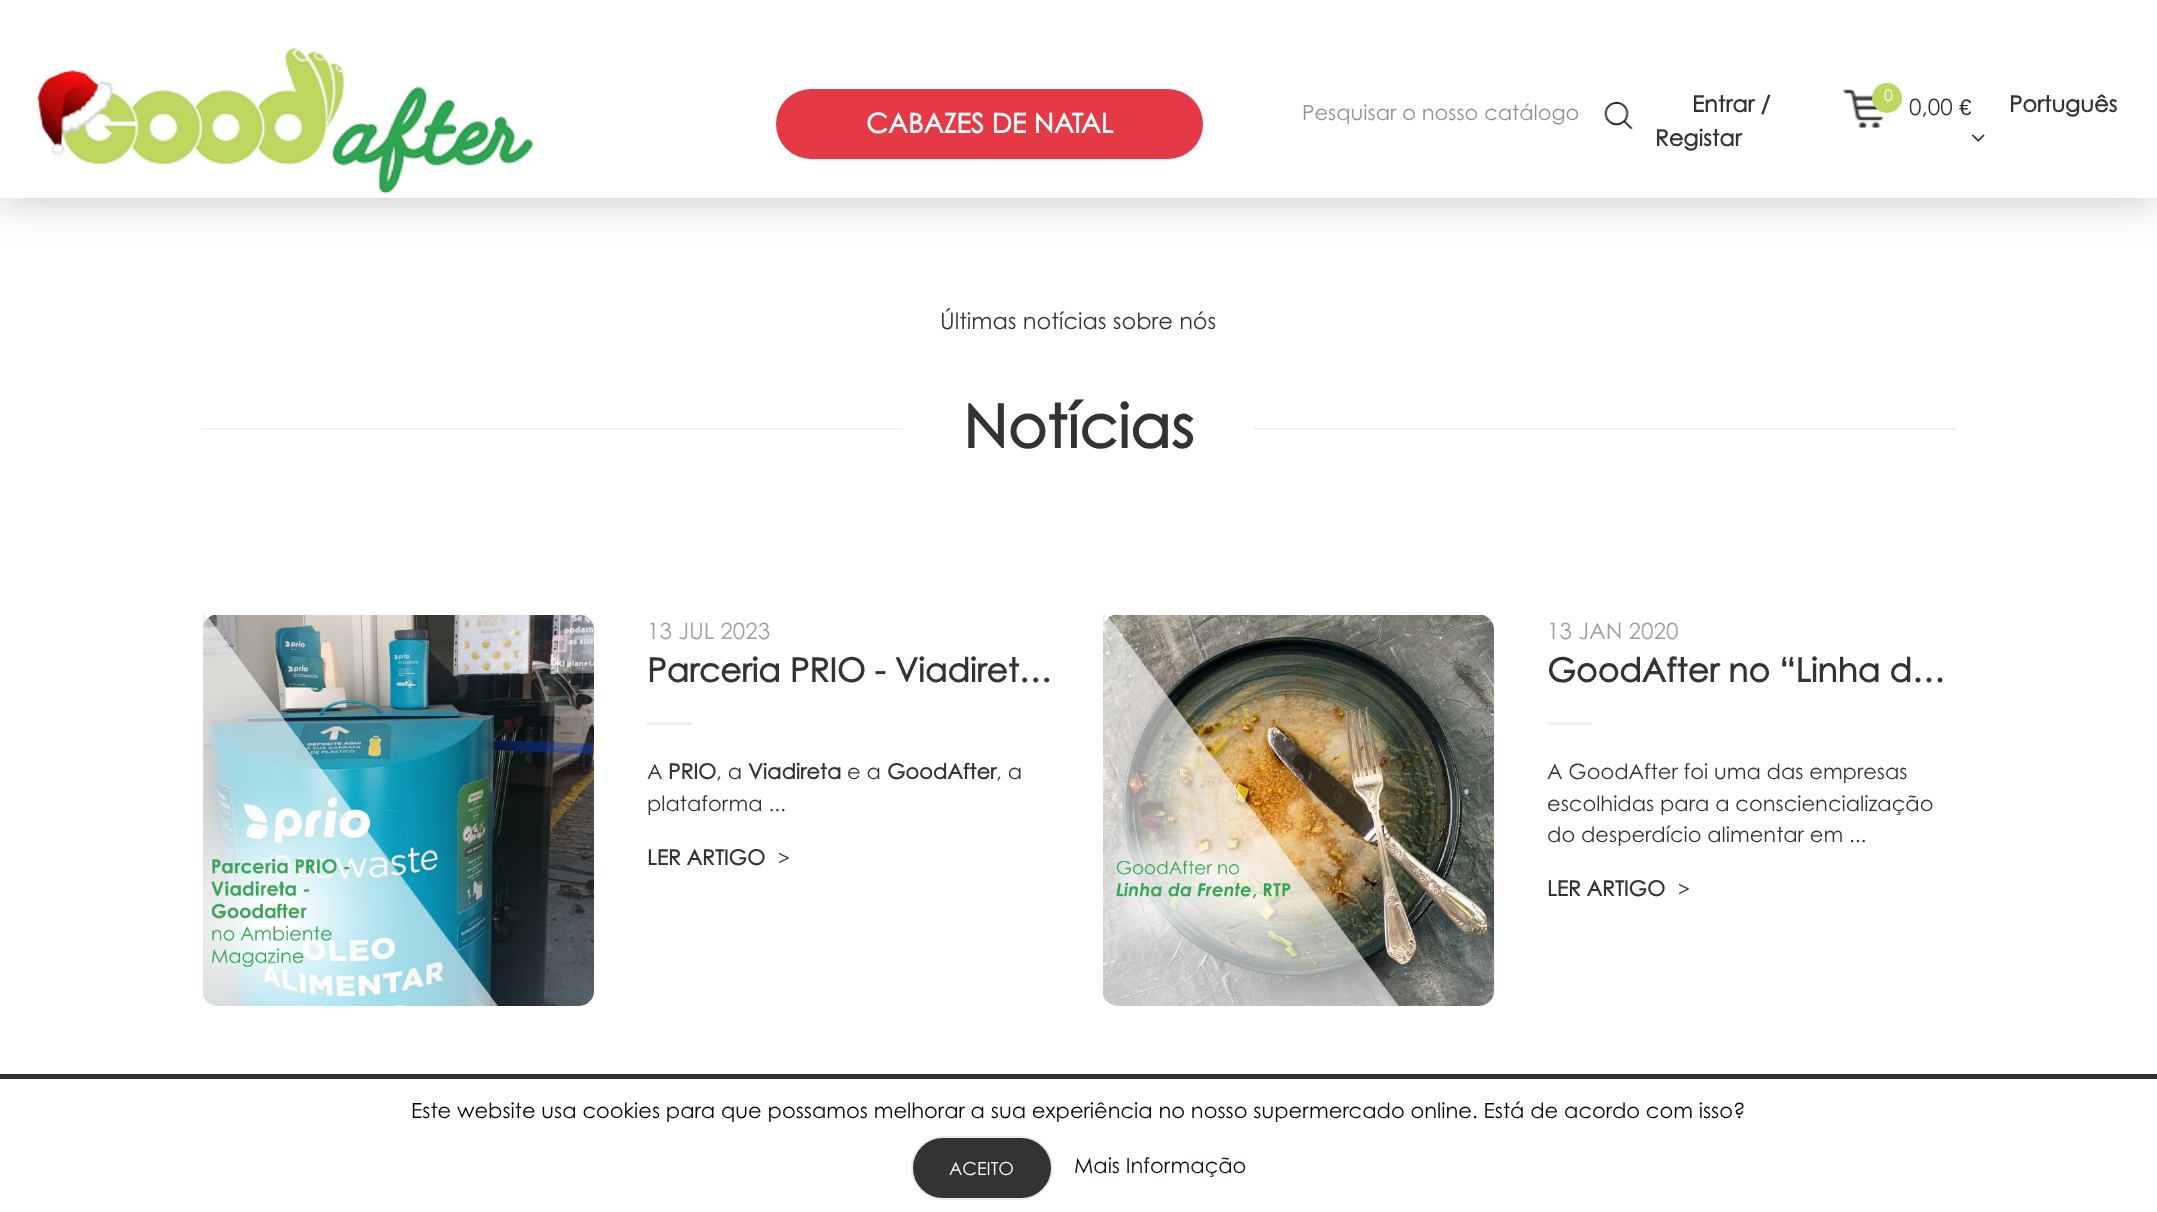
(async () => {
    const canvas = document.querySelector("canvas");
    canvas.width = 2157;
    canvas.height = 1212;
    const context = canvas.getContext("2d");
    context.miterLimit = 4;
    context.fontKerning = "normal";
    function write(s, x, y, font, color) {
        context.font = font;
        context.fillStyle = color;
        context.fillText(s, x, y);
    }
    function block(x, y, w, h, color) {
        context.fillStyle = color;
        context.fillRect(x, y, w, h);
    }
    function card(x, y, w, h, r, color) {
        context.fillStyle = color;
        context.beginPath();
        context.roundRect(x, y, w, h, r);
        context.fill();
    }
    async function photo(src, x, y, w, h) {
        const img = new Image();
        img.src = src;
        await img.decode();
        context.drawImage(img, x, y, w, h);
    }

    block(0, 0, 2157, 1212, "rgb(255, 255, 255)");
    context.fillStyle = "rgba(0, 0, 0, 0.25)";
    context.filter = "blur(22.5px)";
    context.beginPath();
    context.rect(0, 0, 2157, 198);
    context.fill();
    context.filter = "none";
    block(0, 0, 2157, 198, "rgb(255, 255, 255)");
    await photo("media/1.png", 37, 47, 497, 147);
    card(776, 89, 427, 70, 35, "rgb(230, 57, 70)");
    write("CABAZES DE NATAL", 866, 133, "bold 27px Century Gothic", "rgb(255, 255, 255)");
    write("Pesquisar o nosso catálogo", 1302, 120, "21px Century Gothic", "rgb(148, 144, 143)");
    await photo("media/2.png", 1604, 102, 29, 27);
    write("Entrar /", 1692, 112, "bold 22.5px Century Gothic", "rgb(51, 51, 51)");
    write("Registar", 1655, 146, "bold 22.5px Century Gothic", "rgb(51, 51, 51)");
    await photo("media/3.png", 1842, 89, 42, 39);
    context.fillStyle = "rgb(188, 216, 95)";
    context.beginPath();
    context.arc(1887, 98, 15, 0, Math.PI * 2);
    context.fill();
    write("0", 1884, 101, "16px Century Gothic", "rgb(255, 255, 255)");
    write("0,00", 1909, 115, "22.5px Century Gothic", "rgb(51, 51, 51)");
    write("€", 1959, 115, "22.5px Liberation Sans", "rgb(51, 51, 51)");
    write("Português", 2009, 112, "bold 22.5px Century Gothic", "rgb(51, 51, 51)");
    await photo("media/4.png", 1972, 134, 13, 8);
    write("Últimas notícias sobre nós", 940, 329, "22.5px Century Gothic", "rgb(51, 51, 51)");
    block(201, 428, 1755, 2, "rgb(239, 239, 239)");
    block(903, 428, 351, 2, "rgb(255, 255, 255)");
    write("Notícias", 963, 448, "bold 60px Century Gothic", "rgb(51, 51, 51)");
    context.save();
    context.beginPath();
    context.rect(201, 614, 1755, 394);
    context.clip();
    context.beginPath();
    context.roundRect(204, 586, 359, 390, 14);
    context.strokeStyle = "rgb(239, 239, 239)";
    context.lineWidth = 2;
    context.stroke();
    context.restore();
    await photo("media/5.png", 203, 615, 391, 391);
    write("13 JUL 2023", 647, 639, "22.5px Century Gothic", "rgb(159, 159, 159)");
    write("Parceria PRIO - Viadiret…", 647, 682, "bold 33px Century Gothic", "rgb(51, 51, 51)");
    block(647, 722, 45, 3, "rgb(238, 238, 238)");
    write("A", 647, 779, "21px Century Gothic", "rgb(51, 51, 51)");
    write("PRIO", 668, 779, "bold 21px Century Gothic", "rgb(51, 51, 51)");
    write(", a", 716, 779, "21px Century Gothic", "rgb(51, 51, 51)");
    write("Viadireta", 748, 779, "bold 21px Century Gothic", "rgb(51, 51, 51)");
    write("e a", 847, 779, "21px Century Gothic", "rgb(51, 51, 51)");
    write("GoodAfter", 887, 779, "bold 21px Century Gothic", "rgb(51, 51, 51)");
    write(", a", 996, 779, "21px Century Gothic", "rgb(51, 51, 51)");
    write("plataforma ...", 647, 811, "21px Century Gothic", "rgb(51, 51, 51)");
    write("LER ARTIGO", 647, 865, "bold 21px Century Gothic", "rgb(51, 51, 51)");
    write(">", 778, 865, "bold 21px Liberation Serif", "rgb(51, 51, 51)");
    context.save();
    context.beginPath();
    context.rect(201, 614, 1755, 394);
    context.clip();
    context.beginPath();
    context.roundRect(1104, 586, 359, 390, 14);
    context.strokeStyle = "rgb(239, 239, 239)";
    context.lineWidth = 2;
    context.stroke();
    context.restore();
    await photo("media/6.png", 1103, 615, 391, 391);
    write("13 JAN 2020", 1547, 639, "22.5px Century Gothic", "rgb(159, 159, 159)");
    write("GoodAfter no “Linha d…", 1547, 682, "bold 33px Century Gothic", "rgb(51, 51, 51)");
    block(1547, 722, 45, 3, "rgb(238, 238, 238)");
    write("A GoodAfter foi uma das empresas", 1547, 779, "21px Century Gothic", "rgb(51, 51, 51)");
    write("escolhidas para a consciencialização", 1547, 811, "21px Century Gothic", "rgb(51, 51, 51)");
    write("do desperdício alimentar em ...", 1547, 842, "21px Century Gothic", "rgb(51, 51, 51)");
    write("LER ARTIGO", 1547, 896, "bold 21px Century Gothic", "rgb(51, 51, 51)");
    write(">", 1678, 896, "bold 21px Liberation Serif", "rgb(51, 51, 51)");
    block(0, 1074, 2157, 5, "rgb(51, 51, 51)");
    write("Este website usa cookies para que possamos melhorar a sua experiência no nosso supermercado online. Está de acordo com isso?", 411, 1118, "21px Century Gothic", "rgb(0, 0, 0)");
    context.fillStyle = "rgb(51, 51, 51)";
    context.beginPath();
    context.roundRect(912, 1137, 140, 62, 31);
    context.fill();
    context.strokeStyle = "rgb(235, 235, 235)";
    context.lineWidth = 2;
    context.stroke();
    write("ACEITO", 949, 1175, "18px Century Gothic", "rgb(255, 255, 255)");
    write("Mais Informação", 1074, 1173, "21px Century Gothic", "rgb(20, 8, 5)");
})();
